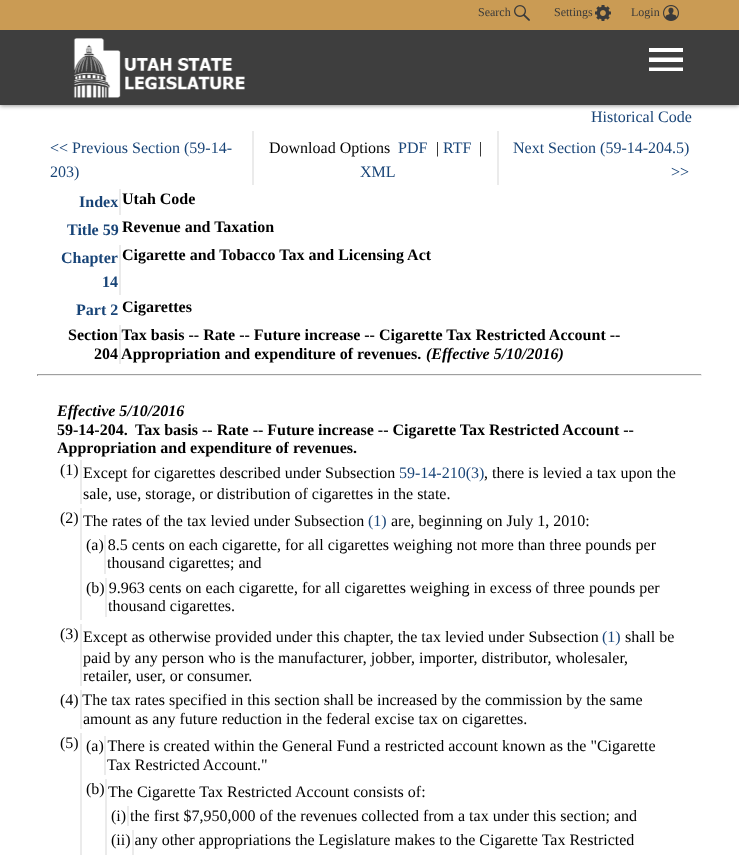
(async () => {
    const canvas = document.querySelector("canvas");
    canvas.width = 739;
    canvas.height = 855;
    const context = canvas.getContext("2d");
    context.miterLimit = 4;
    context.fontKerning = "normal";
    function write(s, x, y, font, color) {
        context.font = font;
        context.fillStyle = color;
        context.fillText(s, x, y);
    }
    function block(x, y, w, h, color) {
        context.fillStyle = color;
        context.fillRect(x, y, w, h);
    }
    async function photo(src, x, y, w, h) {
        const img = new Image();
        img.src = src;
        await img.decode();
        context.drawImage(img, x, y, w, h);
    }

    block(0, 0, 739, 855, "rgb(255, 255, 255)");
    context.fillStyle = "rgba(0, 0, 0, 0.4)";
    context.filter = "blur(2px)";
    context.beginPath();
    context.rect(0, 1, 739, 105);
    context.fill();
    context.filter = "none";
    block(0, 0, 739, 30, "rgb(202, 155, 84)");
    write("Search", 478, 16, "12px Liberation Serif", "rgb(58, 58, 58)");
    await photo("media/1.png", 514, 5, 16, 16);
    write("Settings", 554, 16, "12px Liberation Serif", "rgb(58, 58, 58)");
    await photo("media/2.png", 595, 5, 16, 16);
    write("Login", 631, 16, "12px Liberation Serif", "rgb(58, 58, 58)");
    await photo("media/3.png", 663, 5, 16, 16);
    block(0, 30, 739, 75, "rgb(62, 62, 62)");
    await photo("media/4.png", 73, 38, 172, 60);
    context.save();
    context.beginPath();
    context.rect(649, 48, 34, 23);
    context.clip();
    context.fillStyle = "rgb(255, 255, 255)";
    context.beginPath();
    context.moveTo(649, 57.5);
    context.lineTo(683, 57.5);
    context.lineTo(683, 62);
    context.lineTo(649, 62);
    context.closePath();
    context.moveTo(649, 48);
    context.lineTo(683, 48);
    context.lineTo(683, 52);
    context.lineTo(649, 52);
    context.closePath();
    context.moveTo(649, 67.5);
    context.lineTo(683, 67.5);
    context.lineTo(683, 71.5);
    context.lineTo(649, 71.5);
    context.closePath();
    context.fill();
    context.restore();
    write("Historical Code", 591, 122, "16px Liberation Serif", "rgb(24, 68, 119)");
    block(252, 131, 247, 54, "rgb(235, 235, 235)");
    write("<< Previous Section (59-14-", 50, 153, "16px Liberation Serif", "rgb(24, 68, 119)");
    write("203)", 50, 177, "16px Liberation Serif", "rgb(24, 68, 119)");
    block(254, 131, 243, 54, "rgb(255, 255, 255)");
    write("Download Options", 269, 153, "16px Liberation Serif", "rgb(0, 0, 0)");
    write("PDF", 398, 153, "16px Liberation Serif", "rgb(24, 68, 119)");
    write("|", 436, 153, "16px Liberation Serif", "rgb(0, 0, 0)");
    write("RTF", 443, 153, "16px Liberation Serif", "rgb(24, 68, 119)");
    write("|", 479, 153, "16px Liberation Serif", "rgb(0, 0, 0)");
    write("XML", 360, 177, "16px Liberation Serif", "rgb(24, 68, 119)");
    write("Next Section (59-14-204.5)", 513, 153, "16px Liberation Serif", "rgb(24, 68, 119)");
    write(">>", 671, 177, "16px Liberation Serif", "rgb(24, 68, 119)");
    block(119, 189, 2, 26, "rgb(235, 235, 235)");
    write("Index", 79, 207, "bold 16px Liberation Serif", "rgb(24, 68, 119)");
    write("Utah Code", 122, 204, "bold 16px Liberation Serif", "rgb(0, 0, 0)");
    write("Title 59", 67, 235, "bold 16px Liberation Serif", "rgb(24, 68, 119)");
    write("Revenue and Taxation", 122, 232, "bold 16px Liberation Serif", "rgb(0, 0, 0)");
    block(119, 245, 2, 50, "rgb(235, 235, 235)");
    write("Chapter", 61, 263, "bold 16px Liberation Serif", "rgb(24, 68, 119)");
    write("14", 102, 287, "bold 16px Liberation Serif", "rgb(24, 68, 119)");
    write("Cigarette and Tobacco Tax and Licensing Act", 122, 260, "bold 16px Liberation Serif", "rgb(0, 0, 0)");
    write("Part 2", 76, 315, "bold 16px Liberation Serif", "rgb(24, 68, 119)");
    write("Cigarettes", 122, 312, "bold 16px Liberation Serif", "rgb(0, 0, 0)");
    block(119, 325, 2, 39, "rgb(235, 235, 235)");
    write("Section Tax basis -- Rate -- Future increase -- Cigarette Tax Restricted Account --", 68, 340, "bold 16px Liberation Serif", "rgb(0, 0, 0)");
    write("204 Appropriation and expenditure of revenues.", 94, 359, "bold 16px Liberation Serif", "rgb(0, 0, 0)");
    write("(Effective 5/10/2016)", 426, 359, "italic bold 16px Liberation Serif", "rgb(0, 0, 0)");
    block(37, 374, 665, 1, "rgb(159, 159, 159)");
    block(701, 374, 1, 2, "rgb(238, 238, 238)");
    block(37, 375, 665, 1, "rgb(238, 238, 238)");
    block(37, 374, 1, 2, "rgb(159, 159, 159)");
    write("Effective 5/10/2016", 57, 416, "italic bold 16px Liberation Serif", "rgb(0, 0, 0)");
    write("59-14-204.", 57, 435, "bold 16px Liberation Serif", "rgb(0, 0, 0)");
    write("Tax basis -- Rate -- Future increase -- Cigarette Tax Restricted Account --", 135, 435, "bold 16px Liberation Serif", "rgb(0, 0, 0)");
    write("Appropriation and expenditure of revenues.", 57, 453, "bold 16px Liberation Serif", "rgb(0, 0, 0)");
    block(80, 460, 2, 44, "rgb(235, 235, 235)");
    write("(1)", 60, 475, "16px Liberation Serif", "rgb(0, 0, 0)");
    write("Except for cigarettes described under Subsection", 83, 478, "16px Liberation Serif", "rgb(0, 0, 0)");
    write("59-14-210(3)", 399, 478, "16px Liberation Serif", "rgb(24, 68, 119)");
    write(", there is levied a tax upon the", 484, 478, "16px Liberation Serif", "rgb(0, 0, 0)");
    write("sale, use, storage, or distribution of cigarettes in the state.", 83, 499, "16px Liberation Serif", "rgb(0, 0, 0)");
    block(80, 508, 2, 112, "rgb(235, 235, 235)");
    write("(2)", 60, 523, "16px Liberation Serif", "rgb(0, 0, 0)");
    write("The rates of the tax levied under Subsection", 83, 526, "16px Liberation Serif", "rgb(0, 0, 0)");
    write("(1)", 368, 526, "16px Liberation Serif", "rgb(24, 68, 119)");
    write("are, beginning on July 1, 2010:", 391, 526, "16px Liberation Serif", "rgb(0, 0, 0)");
    block(104, 535, 2, 39, "rgb(235, 235, 235)");
    write("(a) 8.5 cents on each cigarette, for all cigarettes weighing not more than three pounds per", 86, 550, "16px Liberation Serif", "rgb(0, 0, 0)");
    write("thousand cigarettes; and", 107, 568, "16px Liberation Serif", "rgb(0, 0, 0)");
    block(105, 578, 2, 39, "rgb(235, 235, 235)");
    write("(b) 9.963 cents on each cigarette, for all cigarettes weighing in excess of three pounds per", 86, 593, "16px Liberation Serif", "rgb(0, 0, 0)");
    write("thousand cigarettes.", 108, 611, "16px Liberation Serif", "rgb(0, 0, 0)");
    block(80, 624, 2, 62, "rgb(235, 235, 235)");
    write("(3)", 60, 639, "16px Liberation Serif", "rgb(0, 0, 0)");
    write("Except as otherwise provided under this chapter, the tax levied under Subsection", 83, 642, "16px Liberation Serif", "rgb(0, 0, 0)");
    write("(1)", 602, 642, "16px Liberation Serif", "rgb(24, 68, 119)");
    write("shall be", 625, 642, "16px Liberation Serif", "rgb(0, 0, 0)");
    write("paid by any person who is the manufacturer, jobber, importer, distributor, wholesaler,", 83, 663, "16px Liberation Serif", "rgb(0, 0, 0)");
    write("retailer, user, or consumer.", 83, 681, "16px Liberation Serif", "rgb(0, 0, 0)");
    block(80, 690, 2, 39, "rgb(235, 235, 235)");
    write("(4) The tax rates specified in this section shall be increased by the commission by the same", 60, 705, "16px Liberation Serif", "rgb(0, 0, 0)");
    write("amount as any future reduction in the federal excise tax on cigarettes.", 83, 724, "16px Liberation Serif", "rgb(0, 0, 0)");
    block(80, 733, 2, 122, "rgb(235, 235, 235)");
    write("(5)", 60, 748, "16px Liberation Serif", "rgb(0, 0, 0)");
    block(104, 736, 2, 39, "rgb(235, 235, 235)");
    write("(a) There is created within the General Fund a restricted account known as the \"Cigarette", 86, 751, "16px Liberation Serif", "rgb(0, 0, 0)");
    write("Tax Restricted Account.\"", 107, 770, "16px Liberation Serif", "rgb(0, 0, 0)");
    block(105, 779, 2, 76, "rgb(235, 235, 235)");
    write("(b)", 86, 794, "16px Liberation Serif", "rgb(0, 0, 0)");
    write("The Cigarette Tax Restricted Account consists of:", 108, 797, "16px Liberation Serif", "rgb(0, 0, 0)");
    block(127, 806, 2, 20, "rgb(235, 235, 235)");
    write("(i) the first $7,950,000 of the revenues collected from a tax under this section; and", 111, 821, "16px Liberation Serif", "rgb(0, 0, 0)");
    block(132, 830, 2, 25, "rgb(235, 235, 235)");
    write("(ii) any other appropriations the Legislature makes to the Cigarette Tax Restricted", 111, 845, "16px Liberation Serif", "rgb(0, 0, 0)");
})();
